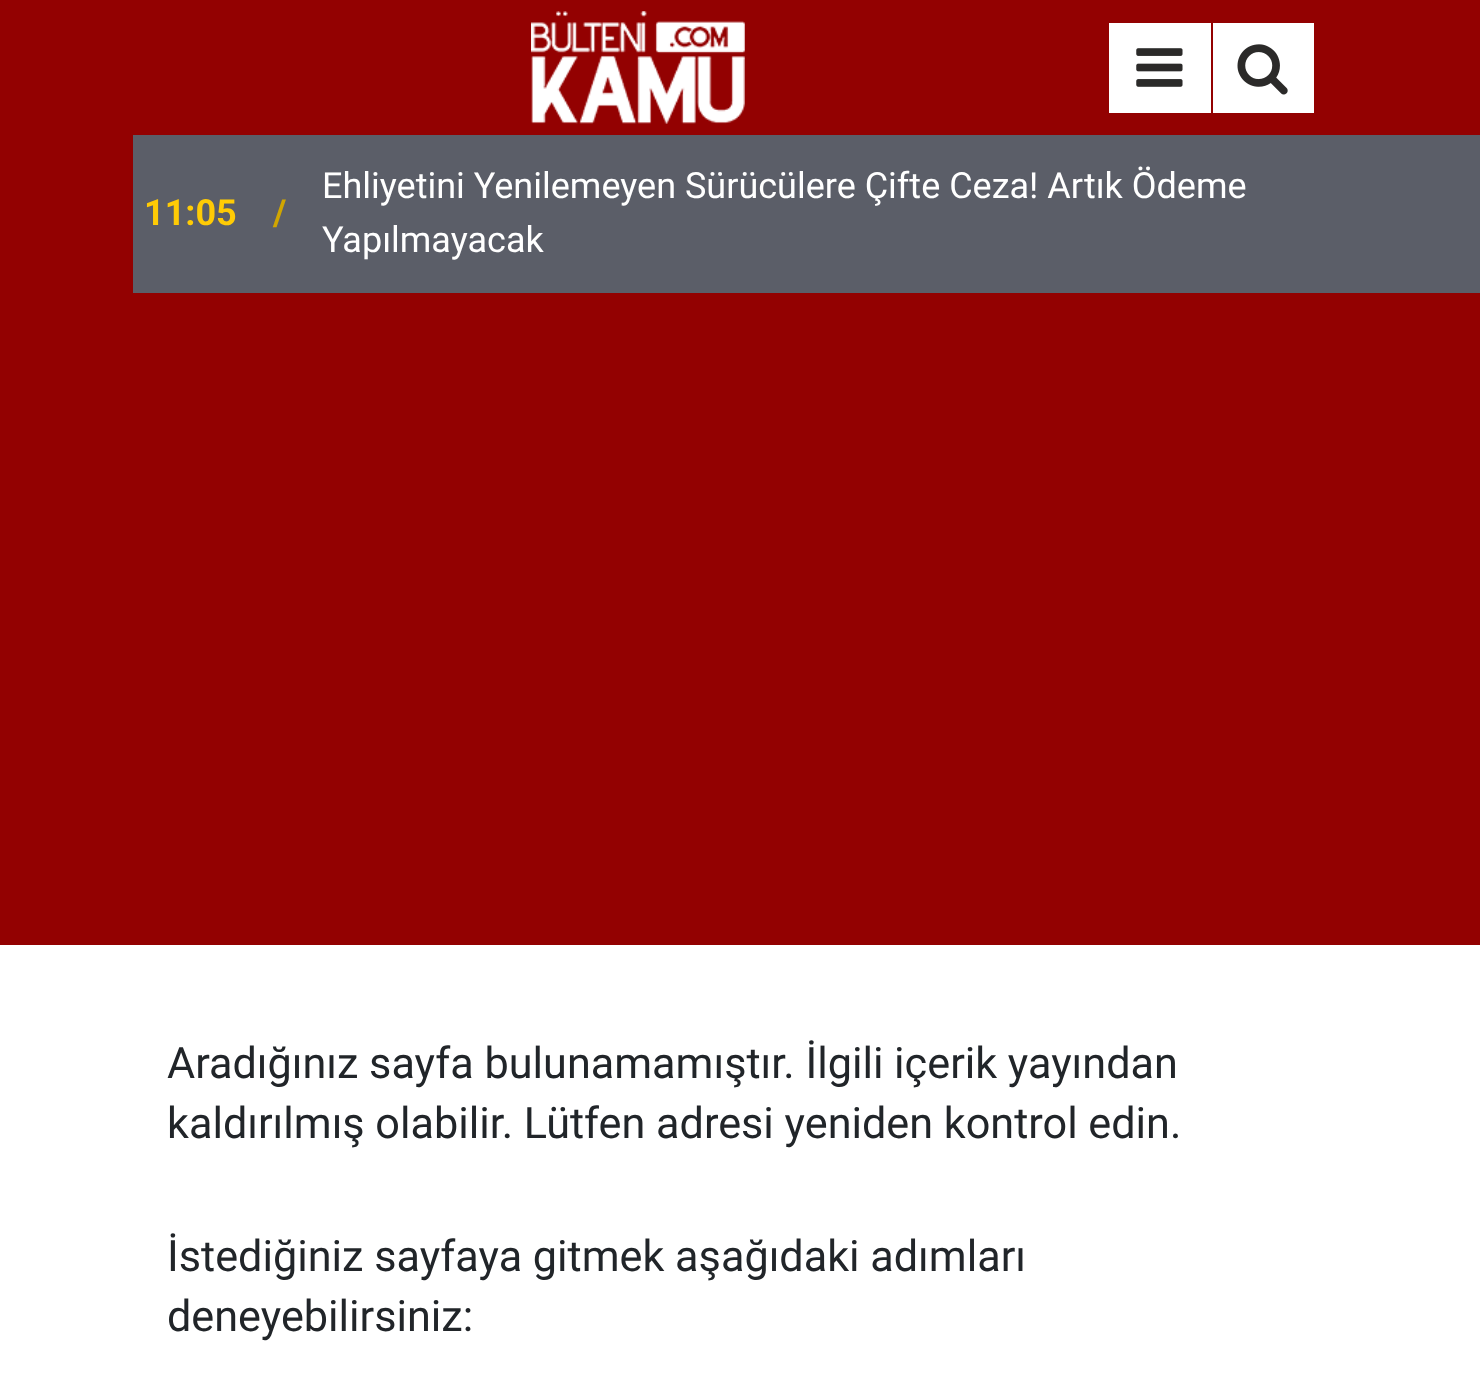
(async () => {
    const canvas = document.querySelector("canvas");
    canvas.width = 1480;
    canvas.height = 1376;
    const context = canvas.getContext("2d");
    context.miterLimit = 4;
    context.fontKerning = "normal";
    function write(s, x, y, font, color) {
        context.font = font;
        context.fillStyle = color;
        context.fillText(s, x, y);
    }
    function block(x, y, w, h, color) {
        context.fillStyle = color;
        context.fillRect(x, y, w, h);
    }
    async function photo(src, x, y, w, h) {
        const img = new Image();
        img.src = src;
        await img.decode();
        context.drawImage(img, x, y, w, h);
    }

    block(0, 0, 1480, 1376, "rgb(255, 255, 255)");
    block(0, 0, 1480, 945, "rgb(147, 1, 1)");
    await photo("media/1.png", 531, 11, 214, 113);
    block(1109, 23, 102, 90, "rgb(255, 255, 255)");
    await photo("media/2.png", 1136, 48, 47, 39);
    block(1213, 23, 101, 90, "rgb(255, 255, 255)");
    await photo("media/3.png", 1237, 44, 51, 51);
    block(133, 135, 1347, 158, "rgb(91, 94, 104)");
    write("11:05", 144, 225, "bold 36px Roboto", "rgb(255, 203, 5)");
    write("/", 273, 225, "bold 36px Roboto", "rgb(209, 166, 0)");
    write("Ehliyetini Yenilemeyen Sürücülere Çifte Ceza! Artık Ödeme", 322, 198, "36px Roboto", "rgb(255, 255, 255)");
    write("Yapılmayacak", 322, 252, "36px Roboto", "rgb(255, 255, 255)");
    write("Aradığınız sayfa bulunamamıştır. İlgili içerik yayından", 167, 1078, "43.2px Roboto", "rgb(33, 37, 41)");
    write("kaldırılmış olabilir. Lütfen adresi yeniden kontrol edin.", 167, 1138, "43.2px Roboto", "rgb(33, 37, 41)");
    write("İstediğiniz sayfaya gitmek aşağıdaki adımları", 167, 1271, "43.2px Roboto", "rgb(33, 37, 41)");
    write("deneyebilirsiniz:", 167, 1331, "43.2px Roboto", "rgb(33, 37, 41)");
})();
